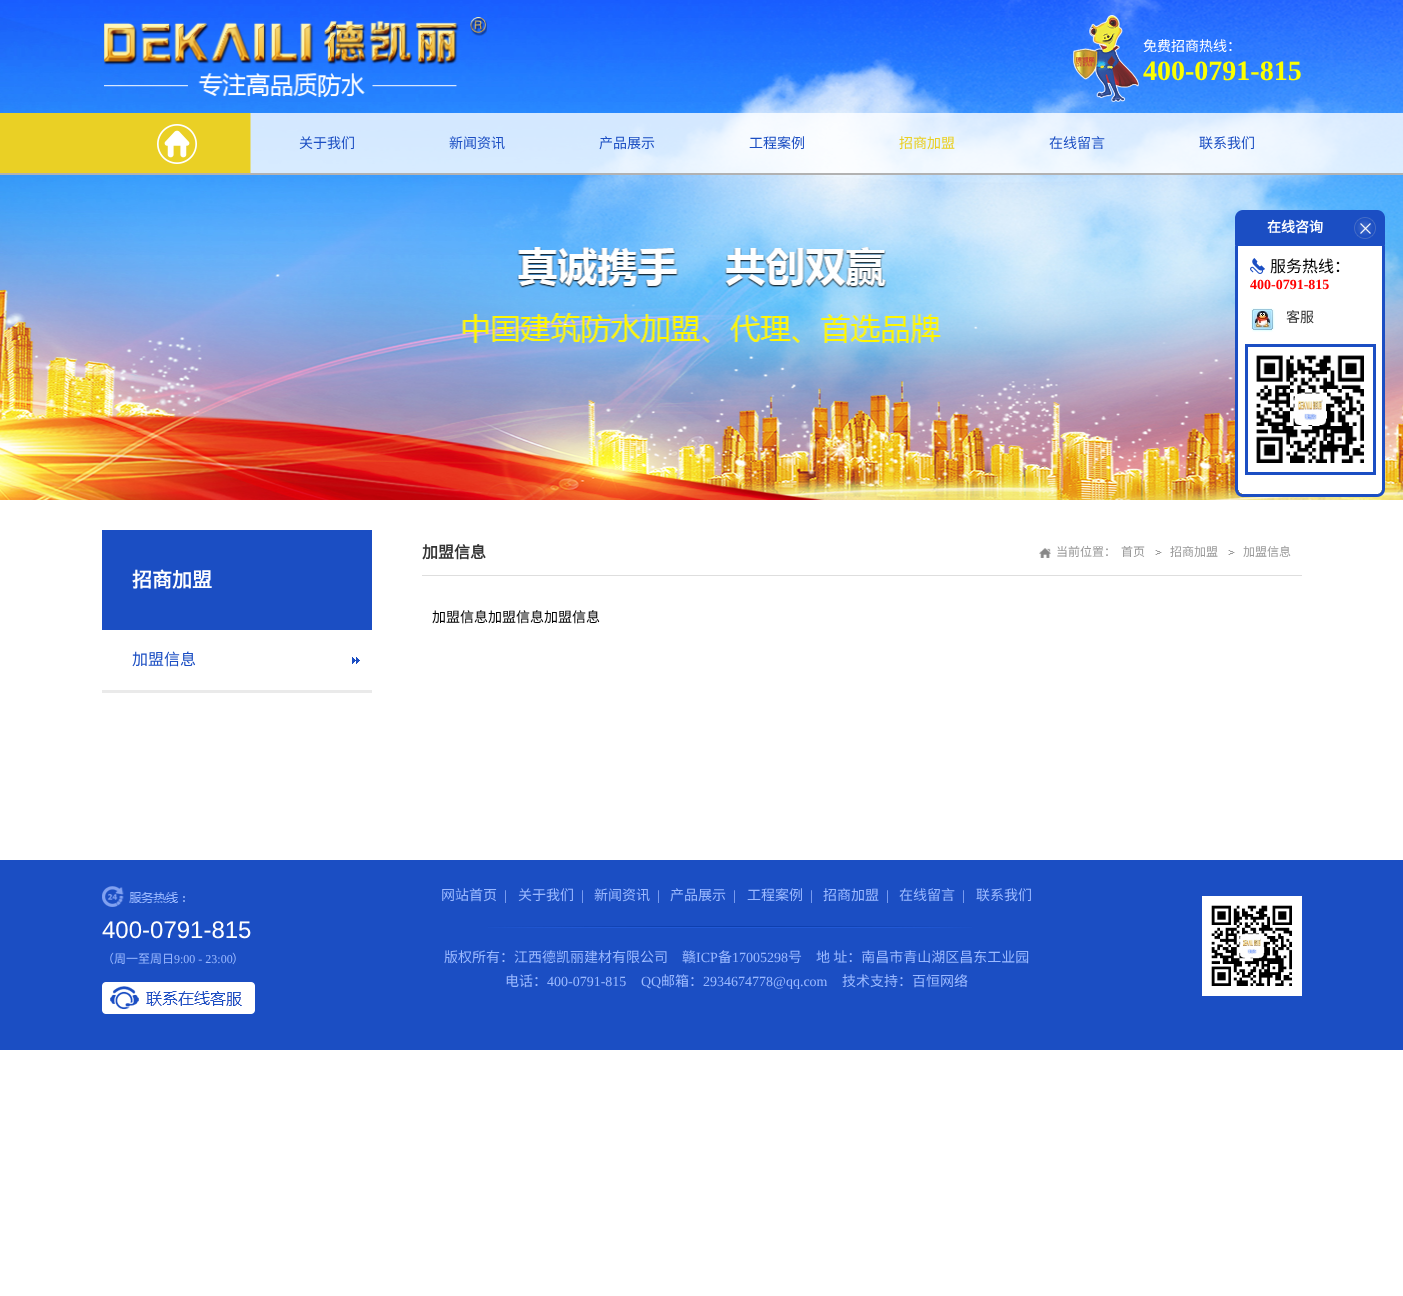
(async () => {
    const canvas = document.querySelector("canvas");
    canvas.width = 1403;
    canvas.height = 1296;
    const context = canvas.getContext("2d");
    context.miterLimit = 4;
    context.fontKerning = "normal";
    function write(s, x, y, font, color) {
        context.font = font;
        context.fillStyle = color;
        context.fillText(s, x, y);
    }
    function block(x, y, w, h, color) {
        context.fillStyle = color;
        context.fillRect(x, y, w, h);
    }
    async function photo(src, x, y, w, h) {
        const img = new Image();
        img.src = src;
        await img.decode();
        context.drawImage(img, x, y, w, h);
    }

    block(0, 0, 1403, 1296, "rgb(255, 255, 255)");
    await photo("media/1.png", 0, 0, 1403, 500);
    await photo("media/2.png", 104, 17, 383, 81);
    await photo("media/3.png", 1073, 15, 66, 87);
    write("免费招商热线：", 1143, 51, "14px Noto Sans CJK SC", "rgb(255, 255, 255)");
    write("400-0791-815", 1143, 80, "bold 28px Liberation Serif", "rgb(252, 255, 0)");
    await photo("media/4.png", 0, 113, 1403, 62);
    await photo("media/5.png", 157, 124, 40, 40);
    write("关于我们", 299, 148, "14px Noto Sans CJK SC", "rgb(27, 78, 195)");
    write("新闻资讯", 449, 148, "14px Noto Sans CJK SC", "rgb(27, 78, 195)");
    write("产品展示", 599, 148, "14px Noto Sans CJK SC", "rgb(27, 78, 195)");
    write("工程案例", 749, 148, "14px Noto Sans CJK SC", "rgb(27, 78, 195)");
    write("招商加盟", 899, 148, "14px Noto Sans CJK SC", "rgb(234, 208, 37)");
    write("在线留言", 1049, 148, "14px Noto Sans CJK SC", "rgb(27, 78, 195)");
    write("联系我们", 1199, 148, "14px Noto Sans CJK SC", "rgb(27, 78, 195)");
    await photo("media/6.png", 1235, 210, 150, 36);
    write("在线咨询", 1267, 232, "bold 14px Noto Sans CJK SC", "rgb(255, 255, 255)");
    await photo("media/7.png", 1235, 246, 150, 236);
    await photo("media/8.png", 1250, 258, 15, 16);
    write("服务热线：", 1270, 272, "16px Noto Sans CJK SC", "rgb(0, 0, 0)");
    write("400-0791-815", 1250, 289, "bold 14px Liberation Serif", "rgb(255, 0, 0)");
    await photo("media/9.png", 1251, 308, 24, 24);
    write("客服", 1286, 322, "14px Noto Sans CJK SC", "rgb(51, 51, 51)");
    context.strokeStyle = "rgb(27, 78, 195)";
    context.lineWidth = 3;
    context.strokeRect(1246.5, 345.5, 128, 128);
    await photo("media/10.png", 1256, 355, 108, 108);
    await photo("media/11.png", 1235, 482, 150, 15);
    block(102, 690, 270, 3, "rgb(234, 234, 234)");
    block(102, 530, 270, 100, "rgb(27, 78, 195)");
    write("招商加盟", 132, 587, "bold 20px Noto Sans CJK SC", "rgb(255, 255, 255)");
    await photo("media/12.png", 352, 657, 8, 7);
    write("加盟信息", 132, 665, "16px Noto Sans CJK SC", "rgb(27, 78, 195)");
    block(422, 575, 880, 1, "rgb(222, 222, 222)");
    write("加盟信息", 422, 558, "bold 16px Noto Sans CJK SC", "rgb(51, 51, 51)");
    await photo("media/13.png", 1039, 548, 12, 10);
    write("当前位置：", 1056, 556, "12px Noto Sans CJK SC", "rgb(153, 153, 153)");
    write("首页", 1121, 556, "12px Noto Sans CJK SC", "rgb(153, 153, 153)");
    await photo("media/14.png", 1155, 550, 7, 5);
    write("招商加盟", 1170, 556, "12px Noto Sans CJK SC", "rgb(153, 153, 153)");
    await photo("media/14.png", 1228, 550, 7, 5);
    write("加盟信息", 1243, 556, "12px Noto Sans CJK SC", "rgb(153, 153, 153)");
    write("加盟信息加盟信息加盟信息", 432, 622, "14px Noto Sans CJK SC", "rgb(0, 0, 0)");
    block(0, 860, 1403, 190, "rgb(27, 78, 195)");
    await photo("media/15.png", 102, 886, 83, 21);
    write("400-0791-815", 102, 938, "24px Liberation Sans", "rgb(255, 255, 255)");
    write("（周一至周日", 102, 963, "12px Noto Sans CJK SC", "rgb(155, 185, 255)");
    write("9:00 - 23:00", 174, 963, "12px Liberation Serif", "rgb(155, 185, 255)");
    write("）", 232, 963, "12px Noto Sans CJK SC", "rgb(155, 185, 255)");
    await photo("media/16.png", 102, 982, 153, 32);
    await photo("media/17.png", 488, 926, 484, 2);
    write("网站首页", 441, 900, "14px Noto Sans CJK SC", "rgb(155, 185, 255)");
    write("|", 504, 900, "14px Liberation Serif", "rgb(155, 185, 255)");
    write("关于我们", 518, 900, "14px Noto Sans CJK SC", "rgb(155, 185, 255)");
    write("|", 581, 900, "14px Liberation Serif", "rgb(155, 185, 255)");
    write("新闻资讯", 594, 900, "14px Noto Sans CJK SC", "rgb(155, 185, 255)");
    write("|", 657, 900, "14px Liberation Serif", "rgb(155, 185, 255)");
    write("产品展示", 670, 900, "14px Noto Sans CJK SC", "rgb(155, 185, 255)");
    write("|", 733, 900, "14px Liberation Serif", "rgb(155, 185, 255)");
    write("工程案例", 747, 900, "14px Noto Sans CJK SC", "rgb(155, 185, 255)");
    write("|", 810, 900, "14px Liberation Serif", "rgb(155, 185, 255)");
    write("招商加盟", 823, 900, "14px Noto Sans CJK SC", "rgb(155, 185, 255)");
    write("|", 886, 900, "14px Liberation Serif", "rgb(155, 185, 255)");
    write("在线留言", 899, 900, "14px Noto Sans CJK SC", "rgb(155, 185, 255)");
    write("|", 962, 900, "14px Liberation Serif", "rgb(155, 185, 255)");
    write("联系我们", 976, 900, "14px Noto Sans CJK SC", "rgb(155, 185, 255)");
    write("版权所有：江西德凯丽建材有限公司", 444, 962, "14px Noto Sans CJK SC", "rgb(155, 185, 255)");
    write("赣", 682, 962, "14px Noto Sans CJK SC", "rgb(155, 185, 255)");
    write("ICP", 696, 962, "14px Liberation Serif", "rgb(155, 185, 255)");
    write("备", 718, 962, "14px Noto Sans CJK SC", "rgb(155, 185, 255)");
    write("17005298", 732, 962, "14px Liberation Serif", "rgb(155, 185, 255)");
    write("号", 788, 962, "14px Noto Sans CJK SC", "rgb(155, 185, 255)");
    write("地 址：南昌市青山湖区昌东工业园", 816, 962, "14px Noto Sans CJK SC", "rgb(155, 185, 255)");
    write("电话：", 505, 986, "14px Noto Sans CJK SC", "rgb(155, 185, 255)");
    write("400-0791-815", 547, 986, "14px Liberation Serif", "rgb(155, 185, 255)");
    write("QQ", 641, 986, "14px Liberation Serif", "rgb(155, 185, 255)");
    write("邮箱：", 661, 986, "14px Noto Sans CJK SC", "rgb(155, 185, 255)");
    write("2934674778@qq.com", 703, 986, "14px Liberation Serif", "rgb(155, 185, 255)");
    write("技术支持：百恒网络", 842, 986, "14px Noto Sans CJK SC", "rgb(155, 185, 255)");
    block(1202, 896, 100, 100, "rgb(255, 255, 255)");
    await photo("media/18.png", 1211, 905, 81, 81);
})();
